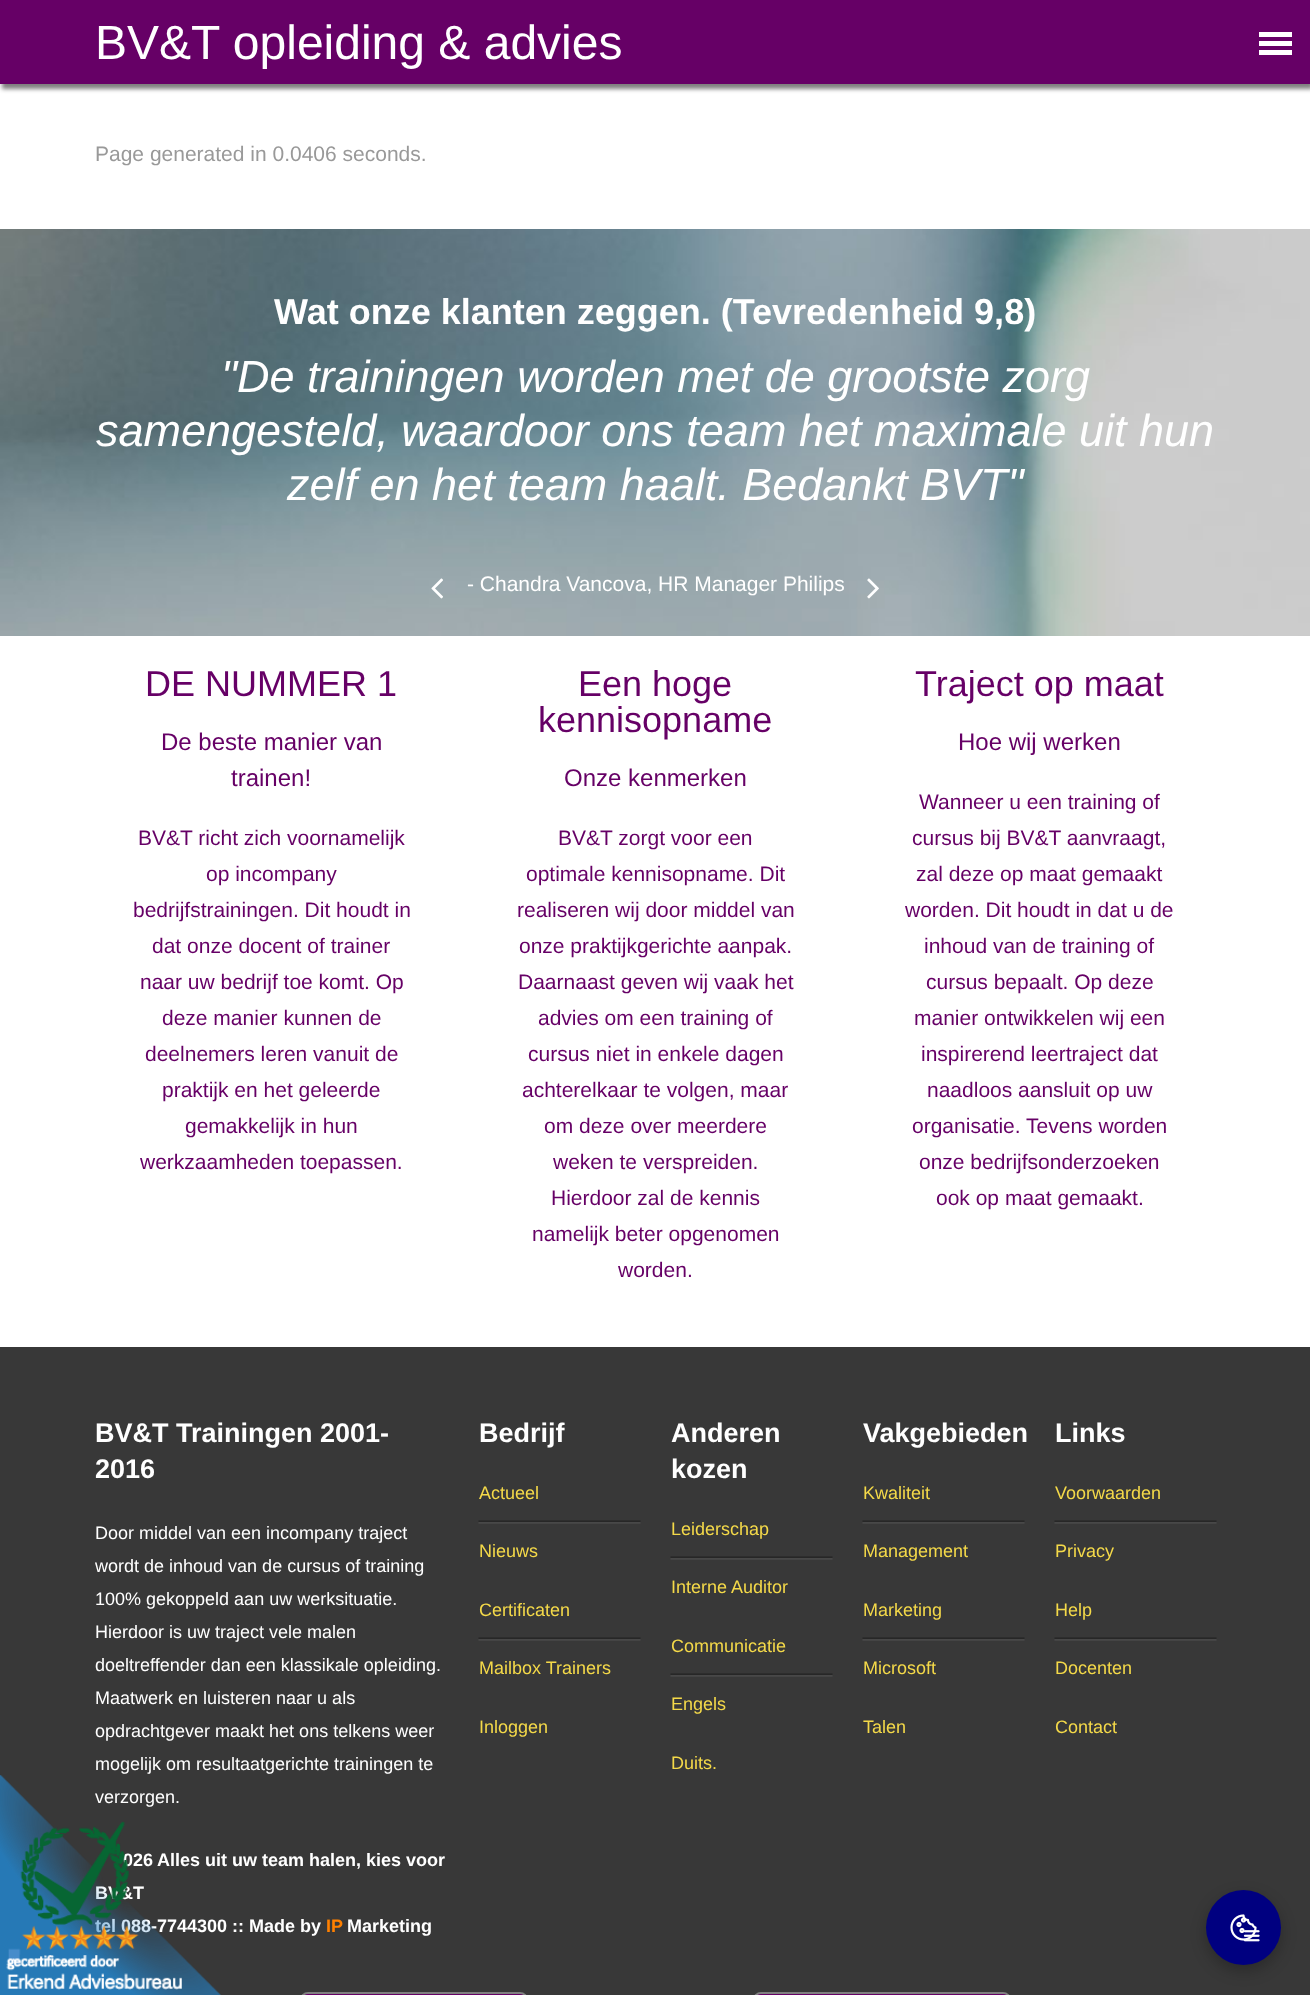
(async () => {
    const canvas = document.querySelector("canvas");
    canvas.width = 1310;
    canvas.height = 1995;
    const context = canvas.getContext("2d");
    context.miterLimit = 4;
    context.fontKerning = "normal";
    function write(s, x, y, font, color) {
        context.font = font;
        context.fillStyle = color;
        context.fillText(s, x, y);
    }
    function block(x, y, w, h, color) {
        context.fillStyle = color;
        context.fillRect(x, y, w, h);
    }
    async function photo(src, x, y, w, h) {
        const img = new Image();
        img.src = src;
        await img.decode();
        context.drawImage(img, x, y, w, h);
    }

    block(0, 0, 1310, 1995, "rgb(255, 255, 255)");
    context.fillStyle = "rgba(0, 0, 0, 0.5)";
    context.filter = "blur(2px)";
    context.beginPath();
    context.rect(2, 5, 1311, 84);
    context.fill();
    context.filter = "none";
    block(0, 0, 1310, 84, "rgb(102, 0, 102)");
    write("BV&T opleiding & advies", 95, 59, "48px Liberation Sans", "rgb(255, 255, 255)");
    block(1259, 32, 33, 5, "rgb(255, 255, 255)");
    block(1259, 41, 33, 5, "rgb(255, 255, 255)");
    block(1259, 50, 33, 5, "rgb(255, 255, 255)");
    write("Page generated in 0.0406 seconds.", 95, 161, "21px Liberation Sans", "rgb(153, 153, 153)");
    await photo("media/1.png", 0, 229, 1310, 407);
    write("Wat onze klanten zeggen. (Tevredenheid 9,8)", 274, 324, "bold 36px Liberation Sans", "rgb(255, 255, 255)");
    write("\"De trainingen worden met de grootste zorg", 221, 392, "italic 45px Liberation Sans", "rgb(255, 255, 255)");
    write("samengesteld, waardoor ons team het maximale uit hun", 96, 446, "italic 45px Liberation Sans", "rgb(255, 255, 255)");
    write("zelf en het team haalt. Bedankt BVT\"", 287, 500, "italic 45px Liberation Sans", "rgb(255, 255, 255)");
    await photo("media/2.png", 431, 578, 12, 21);
    write("- Chandra Vancova, HR Manager Philips", 467, 591, "21px Liberation Sans", "rgb(255, 255, 255)");
    await photo("media/3.png", 867, 578, 12, 21);
    write("DE NUMMER 1", 145, 696, "36px Liberation Sans", "rgb(102, 0, 102)");
    write("De beste manier van", 161, 750, "24px Liberation Sans", "rgb(102, 0, 102)");
    write("trainen!", 231, 786, "24px Liberation Sans", "rgb(102, 0, 102)");
    write("BV&T richt zich voornamelijk", 138, 845, "21px Liberation Sans", "rgb(102, 0, 102)");
    write("op incompany", 206, 881, "21px Liberation Sans", "rgb(102, 0, 102)");
    write("bedrijfstrainingen. Dit houdt in", 133, 917, "21px Liberation Sans", "rgb(102, 0, 102)");
    write("dat onze docent of trainer", 152, 953, "21px Liberation Sans", "rgb(102, 0, 102)");
    write("naar uw bedrijf toe komt. Op", 140, 989, "21px Liberation Sans", "rgb(102, 0, 102)");
    write("deze manier kunnen de", 162, 1025, "21px Liberation Sans", "rgb(102, 0, 102)");
    write("deelnemers leren vanuit de", 145, 1061, "21px Liberation Sans", "rgb(102, 0, 102)");
    write("praktijk en het geleerde", 162, 1097, "21px Liberation Sans", "rgb(102, 0, 102)");
    write("gemakkelijk in hun", 185, 1133, "21px Liberation Sans", "rgb(102, 0, 102)");
    write("werkzaamheden toepassen.", 140, 1169, "21px Liberation Sans", "rgb(102, 0, 102)");
    write("Een hoge", 578, 696, "36px Liberation Sans", "rgb(102, 0, 102)");
    write("kennisopname", 538, 732, "36px Liberation Sans", "rgb(102, 0, 102)");
    write("Onze kenmerken", 564, 786, "24px Liberation Sans", "rgb(102, 0, 102)");
    write("BV&T zorgt voor een", 558, 845, "21px Liberation Sans", "rgb(102, 0, 102)");
    write("optimale kennisopname. Dit", 526, 881, "21px Liberation Sans", "rgb(102, 0, 102)");
    write("realiseren wij door middel van", 517, 917, "21px Liberation Sans", "rgb(102, 0, 102)");
    write("onze praktijkgerichte aanpak.", 519, 953, "21px Liberation Sans", "rgb(102, 0, 102)");
    write("Daarnaast geven wij vaak het", 518, 989, "21px Liberation Sans", "rgb(102, 0, 102)");
    write("advies om een training of", 538, 1025, "21px Liberation Sans", "rgb(102, 0, 102)");
    write("cursus niet in enkele dagen", 528, 1061, "21px Liberation Sans", "rgb(102, 0, 102)");
    write("achterelkaar te volgen, maar", 522, 1097, "21px Liberation Sans", "rgb(102, 0, 102)");
    write("om deze over meerdere", 544, 1133, "21px Liberation Sans", "rgb(102, 0, 102)");
    write("weken te verspreiden.", 553, 1169, "21px Liberation Sans", "rgb(102, 0, 102)");
    write("Hierdoor zal de kennis", 551, 1205, "21px Liberation Sans", "rgb(102, 0, 102)");
    write("namelijk beter opgenomen", 532, 1241, "21px Liberation Sans", "rgb(102, 0, 102)");
    write("worden.", 618, 1277, "21px Liberation Sans", "rgb(102, 0, 102)");
    write("Traject op maat", 915, 696, "36px Liberation Sans", "rgb(102, 0, 102)");
    write("Hoe wij werken", 958, 750, "24px Liberation Sans", "rgb(102, 0, 102)");
    write("Wanneer u een training of", 919, 809, "21px Liberation Sans", "rgb(102, 0, 102)");
    write("cursus bij BV&T aanvraagt,", 912, 845, "21px Liberation Sans", "rgb(102, 0, 102)");
    write("zal deze op maat gemaakt", 916, 881, "21px Liberation Sans", "rgb(102, 0, 102)");
    write("worden. Dit houdt in dat u de", 905, 917, "21px Liberation Sans", "rgb(102, 0, 102)");
    write("inhoud van de training of", 924, 953, "21px Liberation Sans", "rgb(102, 0, 102)");
    write("cursus bepaalt. Op deze", 926, 989, "21px Liberation Sans", "rgb(102, 0, 102)");
    write("manier ontwikkelen wij een", 914, 1025, "21px Liberation Sans", "rgb(102, 0, 102)");
    write("inspirerend leertraject dat", 921, 1061, "21px Liberation Sans", "rgb(102, 0, 102)");
    write("naadloos aansluit op uw", 927, 1097, "21px Liberation Sans", "rgb(102, 0, 102)");
    write("organisatie. Tevens worden", 912, 1133, "21px Liberation Sans", "rgb(102, 0, 102)");
    write("onze bedrijfsonderzoeken", 919, 1169, "21px Liberation Sans", "rgb(102, 0, 102)");
    write("ook op maat gemaakt.", 936, 1205, "21px Liberation Sans", "rgb(102, 0, 102)");
    block(0, 1347, 1310, 648, "rgb(56, 56, 56)");
    write("BV&T Trainingen 2001-", 95, 1442, "bold 27px Liberation Sans", "rgb(255, 255, 255)");
    write("2016", 95, 1478, "bold 27px Liberation Sans", "rgb(255, 255, 255)");
    write("Door middel van een incompany traject", 95, 1539, "18px Liberation Sans", "rgb(255, 255, 255)");
    write("wordt de inhoud van de cursus of training", 95, 1572, "18px Liberation Sans", "rgb(255, 255, 255)");
    write("100% gekoppeld aan uw werksituatie.", 95, 1605, "18px Liberation Sans", "rgb(255, 255, 255)");
    write("Hierdoor is uw traject vele malen", 95, 1638, "18px Liberation Sans", "rgb(255, 255, 255)");
    write("doeltreffender dan een klassikale opleiding.", 95, 1671, "18px Liberation Sans", "rgb(255, 255, 255)");
    write("Maatwerk en luisteren naar u als", 95, 1704, "18px Liberation Sans", "rgb(255, 255, 255)");
    write("opdrachtgever maakt het ons telkens weer", 95, 1737, "18px Liberation Sans", "rgb(255, 255, 255)");
    write("mogelijk om resultaatgerichte trainingen te", 95, 1770, "18px Liberation Sans", "rgb(255, 255, 255)");
    write("verzorgen.", 95, 1803, "18px Liberation Sans", "rgb(255, 255, 255)");
    write("026", 123, 1866, "bold 18px Liberation Sans", "rgb(255, 255, 255)");
    write("Alles uit uw team halen, kies voor", 157, 1866, "bold 18px Liberation Sans", "rgb(255, 255, 255)");
    write("BV&T", 95, 1899, "bold 18px Liberation Sans", "rgb(255, 255, 255)");
    write("tel 088-7744300 :: Made by", 95, 1932, "bold 18px Liberation Sans", "rgb(255, 255, 255)");
    write("IP", 326, 1932, "bold 18px Liberation Sans", "rgb(255, 128, 0)");
    write("Marketing", 347, 1932, "bold 18px Liberation Sans", "rgb(255, 255, 255)");
    write("Bedrijf", 479, 1442, "bold 27px Liberation Sans", "rgb(255, 255, 255)");
    write("Actueel", 479, 1499, "18px Liberation Sans", "rgb(244, 217, 73)");
    await photo("media/4.png", 478, 1520, 163, 4);
    write("Nieuws", 479, 1557, "18px Liberation Sans", "rgb(244, 217, 73)");
    write("Certificaten", 479, 1616, "18px Liberation Sans", "rgb(244, 217, 73)");
    await photo("media/4.png", 478, 1637, 163, 4);
    write("Mailbox Trainers", 479, 1674, "18px Liberation Sans", "rgb(244, 217, 73)");
    write("Inloggen", 479, 1733, "18px Liberation Sans", "rgb(244, 217, 73)");
    write("Anderen", 671, 1442, "bold 27px Liberation Sans", "rgb(255, 255, 255)");
    write("kozen", 671, 1478, "bold 27px Liberation Sans", "rgb(255, 255, 255)");
    write("Leiderschap", 671, 1535, "18px Liberation Sans", "rgb(244, 217, 73)");
    await photo("media/4.png", 670, 1556, 163, 4);
    write("Interne Auditor", 671, 1593, "18px Liberation Sans", "rgb(244, 217, 73)");
    write("Communicatie", 671, 1652, "18px Liberation Sans", "rgb(244, 217, 73)");
    await photo("media/4.png", 670, 1673, 163, 4);
    write("Engels", 671, 1710, "18px Liberation Sans", "rgb(244, 217, 73)");
    write("Duits.", 671, 1769, "18px Liberation Sans", "rgb(244, 217, 73)");
    write("Vakgebieden", 863, 1442, "bold 27px Liberation Sans", "rgb(255, 255, 255)");
    write("Kwaliteit", 863, 1499, "18px Liberation Sans", "rgb(244, 217, 73)");
    await photo("media/4.png", 862, 1520, 163, 4);
    write("Management", 863, 1557, "18px Liberation Sans", "rgb(244, 217, 73)");
    write("Marketing", 863, 1616, "18px Liberation Sans", "rgb(244, 217, 73)");
    await photo("media/4.png", 862, 1637, 163, 4);
    write("Microsoft", 863, 1674, "18px Liberation Sans", "rgb(244, 217, 73)");
    write("Talen", 863, 1733, "18px Liberation Sans", "rgb(244, 217, 73)");
    write("Links", 1055, 1442, "bold 27px Liberation Sans", "rgb(255, 255, 255)");
    write("Voorwaarden", 1055, 1499, "18px Liberation Sans", "rgb(244, 217, 73)");
    await photo("media/4.png", 1054, 1520, 163, 4);
    write("Privacy", 1055, 1557, "18px Liberation Sans", "rgb(244, 217, 73)");
    write("Help", 1055, 1616, "18px Liberation Sans", "rgb(244, 217, 73)");
    await photo("media/4.png", 1054, 1637, 163, 4);
    write("Docenten", 1055, 1674, "18px Liberation Sans", "rgb(244, 217, 73)");
    write("Contact", 1055, 1733, "18px Liberation Sans", "rgb(244, 217, 73)");
    context.fillStyle = "rgb(102, 0, 102)";
    context.beginPath();
    context.moveTo(308, 1993);
    context.lineTo(520, 1993);
    context.bezierCurveTo(524, 1993, 527, 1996, 527, 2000);
    context.lineTo(527, 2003);
    context.lineTo(301, 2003);
    context.lineTo(301, 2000);
    context.bezierCurveTo(301, 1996, 304, 1993, 308, 1993);
    context.closePath();
    context.fill();
    context.strokeStyle = "rgb(128, 128, 128)";
    context.lineWidth = 2;
    context.stroke();
    context.beginPath();
    context.moveTo(761, 1993);
    context.lineTo(1003, 1993);
    context.bezierCurveTo(1007, 1993, 1010, 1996, 1010, 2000);
    context.lineTo(1010, 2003);
    context.lineTo(754, 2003);
    context.lineTo(754, 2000);
    context.bezierCurveTo(754, 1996, 757, 1993, 761, 1993);
    context.closePath();
    context.fill();
    context.stroke();
    await photo("media/5.png", 0, 1775, 221, 220);
    context.fillStyle = "rgba(0, 0, 0, 0.25)";
    context.filter = "blur(7.5px)";
    context.beginPath();
    context.roundRect(1206, 1896, 75, 75, 37.5);
    context.fill();
    context.filter = "none";
    context.fillStyle = "rgb(0, 0, 128)";
    context.beginPath();
    context.arc(1243.5, 1927.5, 37.5, 0, Math.PI * 2);
    context.fill();
    await photo("media/6.png", 1230, 1914, 30, 28);
})();
